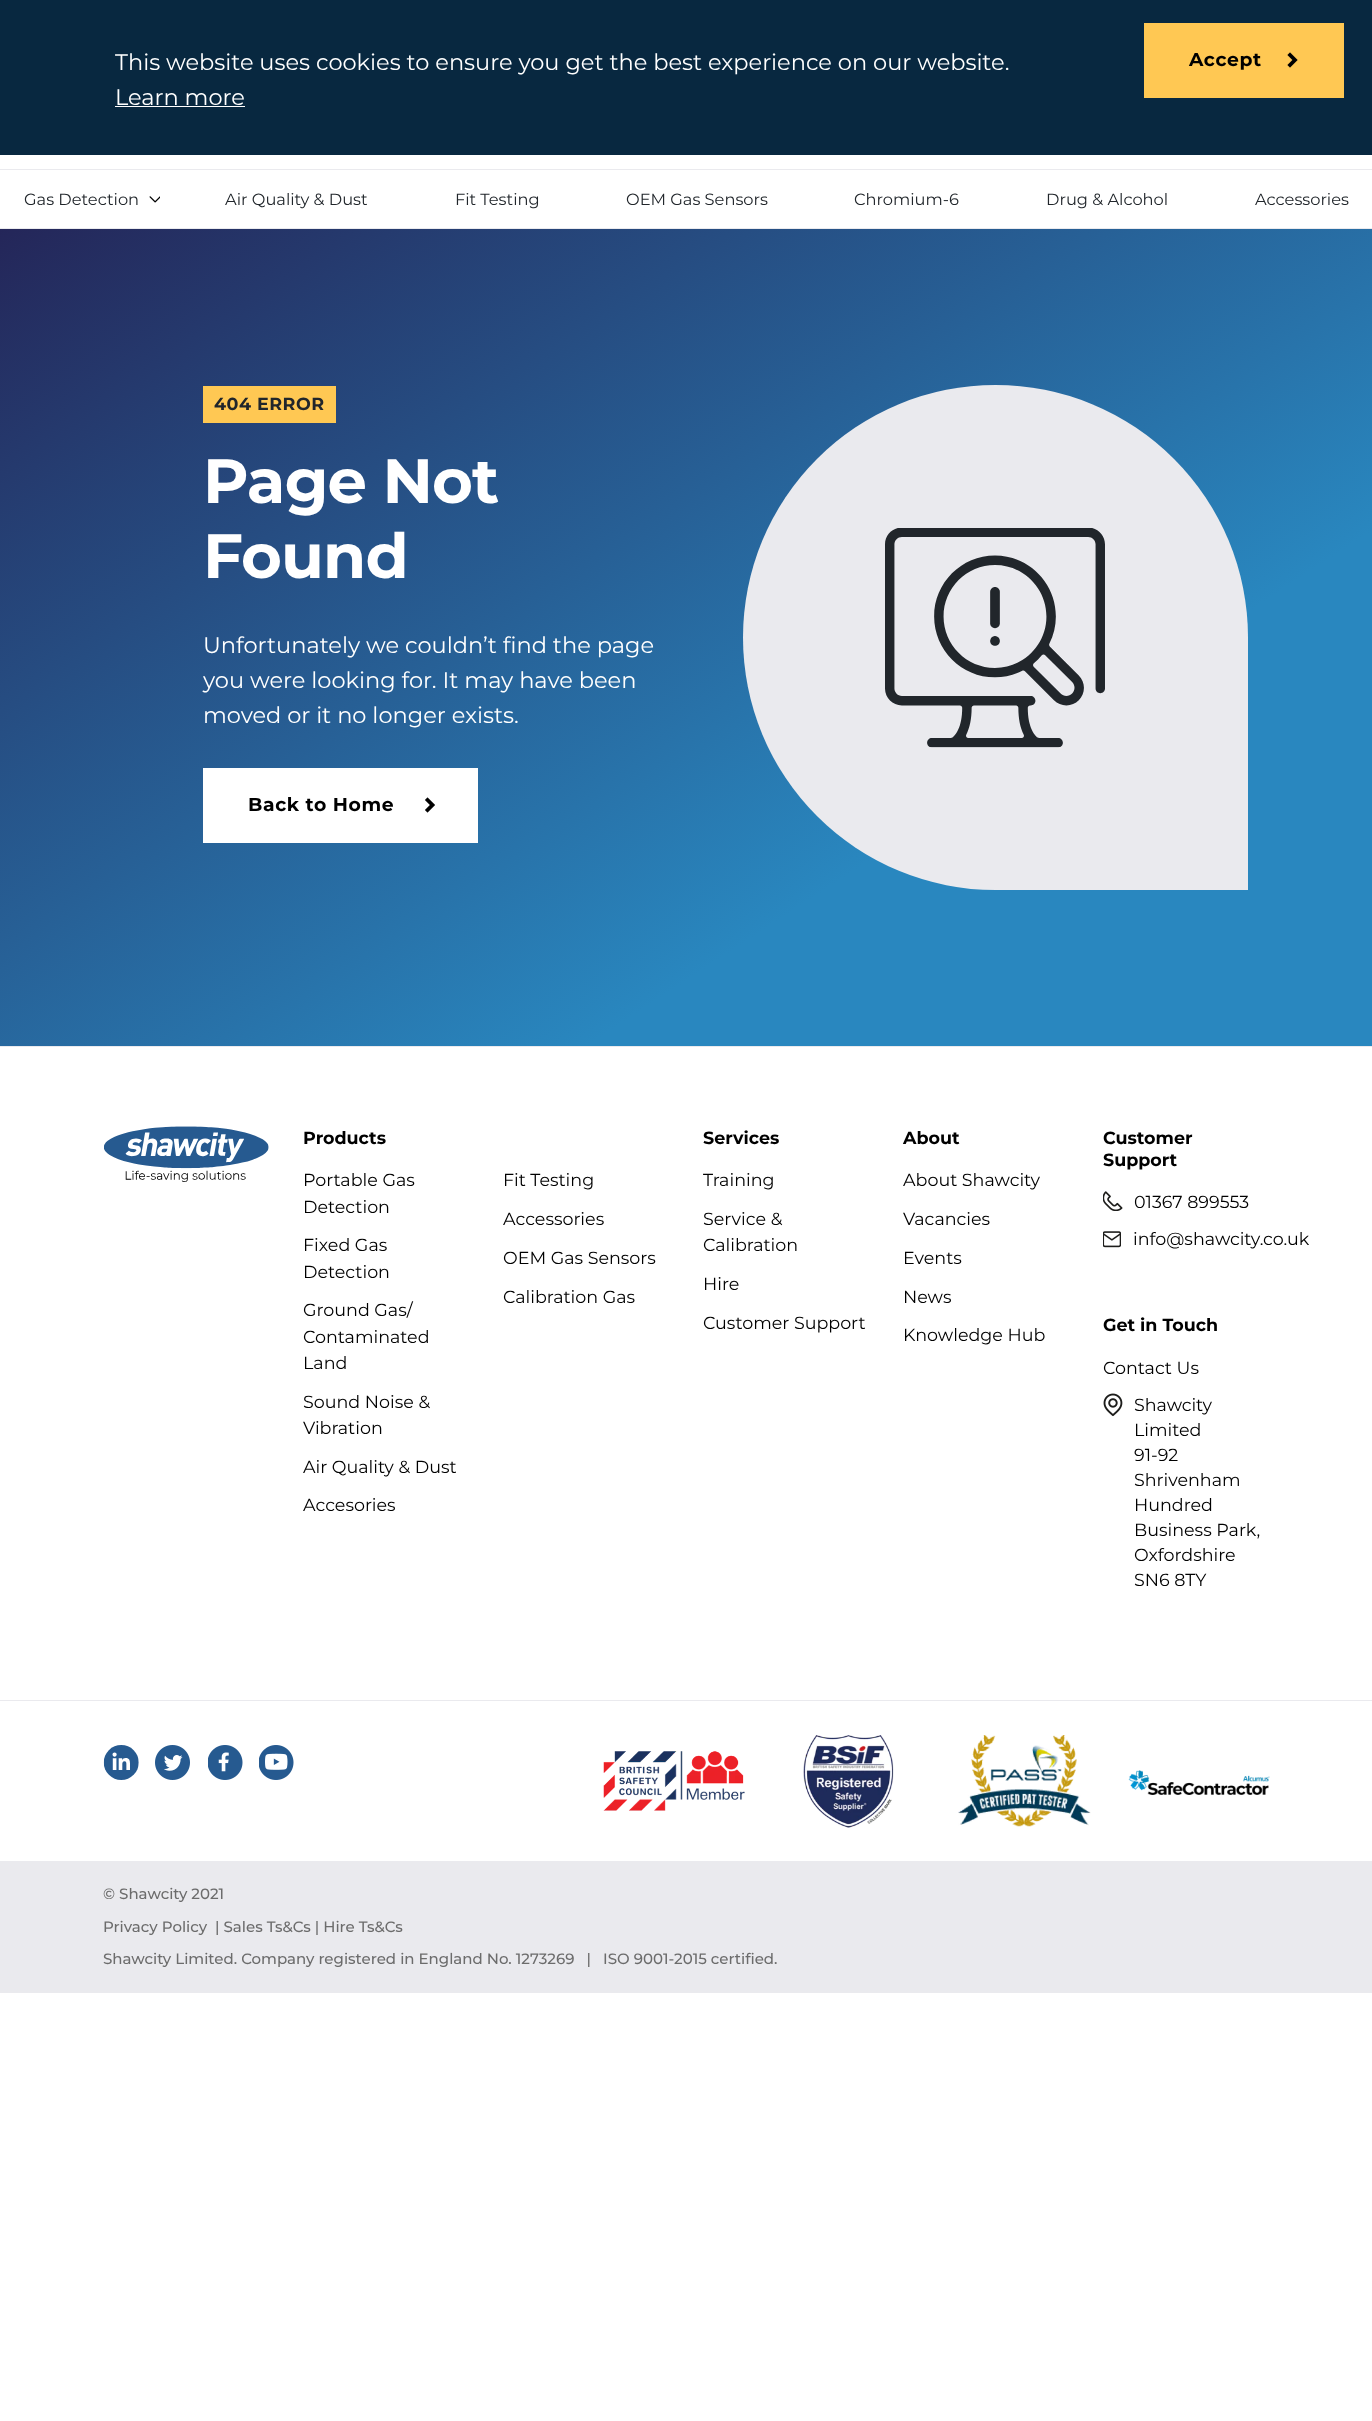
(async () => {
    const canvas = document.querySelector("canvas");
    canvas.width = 1372;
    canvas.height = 2421;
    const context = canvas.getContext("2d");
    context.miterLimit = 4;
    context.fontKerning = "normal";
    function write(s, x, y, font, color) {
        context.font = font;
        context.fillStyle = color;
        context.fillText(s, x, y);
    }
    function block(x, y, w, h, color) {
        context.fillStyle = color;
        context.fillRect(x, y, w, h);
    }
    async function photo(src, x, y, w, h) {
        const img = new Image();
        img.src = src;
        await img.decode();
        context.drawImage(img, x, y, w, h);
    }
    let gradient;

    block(0, 0, 1372, 2421, "rgb(255, 255, 255)");
    block(0, 0, 1372, 155, "rgb(8, 40, 64)");
    write("This website uses cookies to ensure you get the best experience on our website.", 115, 70, "22.5px Montserrat", "rgb(255, 255, 255)");
    write("Learn more", 115, 105, "22.5px Montserrat", "rgb(255, 255, 255)");
    block(115, 106, 130, 1, "rgb(255, 255, 255)");
    block(1144, 23, 200, 75, "rgb(255, 200, 83)");
    context.letterSpacing = "0.6px";
    write("Accept", 1189, 66, "bold 18.75px Montserrat", "rgb(0, 0, 0)");
    await photo("media/1.png", 1287, 52, 11, 16);
    block(0, 169, 1372, 1, "rgb(234, 234, 238)");
    block(0, 228, 1372, 1, "rgb(234, 234, 238)");
    context.letterSpacing = "0px";
    write("Gas Detection", 24, 205, "16.25px Montserrat", "rgb(33, 38, 43)");
    await photo("media/2.png", 149, 196, 11, 7);
    write("Air Quality & Dust", 225, 205, "16.25px Montserrat", "rgb(33, 38, 43)");
    write("Fit Testing", 455, 205, "16.25px Montserrat", "rgb(33, 38, 43)");
    write("OEM Gas Sensors", 626, 205, "16.25px Montserrat", "rgb(33, 38, 43)");
    write("Chromium-6", 854, 205, "16.25px Montserrat", "rgb(33, 38, 43)");
    write("Drug & Alcohol", 1046, 205, "16.25px Montserrat", "rgb(33, 38, 43)");
    write("Accessories", 1255, 205, "16.25px Montserrat", "rgb(33, 38, 43)");
    gradient = context.createLinearGradient(1080, 1238, 292, 37);
    gradient.addColorStop(0.3, "rgb(41, 135, 191)");
    gradient.addColorStop(1, "rgb(36, 38, 89)");
    context.fillStyle = gradient;
    context.fillRect(0, 229, 1372, 817);
    block(203, 386, 133, 37, "rgb(255, 200, 83)");
    context.letterSpacing = "0.5px";
    write("404 ERROR", 214, 410, "bold 17.5px Montserrat", "rgb(33, 38, 43)");
    context.letterSpacing = "-1px";
    write("Page Not", 203, 503, "bold 62.5px Montserrat", "rgb(255, 255, 255)");
    write("Found", 203, 578, "bold 62.5px Montserrat", "rgb(255, 255, 255)");
    context.letterSpacing = "0px";
    write("Unfortunately we couldn’t find the page", 203, 653, "22.5px Montserrat", "rgb(255, 255, 255)");
    write("you were looking for. It may have been", 203, 688, "22.5px Montserrat", "rgb(255, 255, 255)");
    write("moved or it no longer exists.", 203, 723, "22.5px Montserrat", "rgb(255, 255, 255)");
    block(203, 768, 275, 75, "rgb(255, 255, 255)");
    context.letterSpacing = "0.6px";
    write("Back to Home", 248, 811, "bold 18.75px Montserrat", "rgb(0, 0, 0)");
    await photo("media/3.png", 425, 797, 10, 16);
    context.fillStyle = "rgb(234, 234, 238)";
    context.beginPath();
    context.roundRect(743, 385, 505, 505, [252.5, 252.5, 0, 252.5]);
    context.fill();
    await photo("media/4.png", 885, 528, 220, 220);
    block(0, 1046, 1372, 1, "rgb(234, 234, 238)");
    await photo("media/5.png", 104, 1126, 165, 56);
    context.letterSpacing = "0px";
    write("Products", 303, 1144, "bold 17.5px Montserrat", "rgb(0, 0, 0)");
    write("Portable Gas", 303, 1186, "17.5px Montserrat", "rgb(0, 0, 0)");
    write("Detection", 303, 1213, "17.5px Montserrat", "rgb(0, 0, 0)");
    write("Fixed Gas", 303, 1251, "17.5px Montserrat", "rgb(0, 0, 0)");
    write("Detection", 303, 1278, "17.5px Montserrat", "rgb(0, 0, 0)");
    write("Ground Gas/", 303, 1316, "17.5px Montserrat", "rgb(0, 0, 0)");
    write("Contaminated", 303, 1343, "17.5px Montserrat", "rgb(0, 0, 0)");
    write("Land", 303, 1369, "17.5px Montserrat", "rgb(0, 0, 0)");
    write("Sound Noise &", 303, 1408, "17.5px Montserrat", "rgb(0, 0, 0)");
    write("Vibration", 303, 1434, "17.5px Montserrat", "rgb(0, 0, 0)");
    write("Air Quality & Dust", 303, 1473, "17.5px Montserrat", "rgb(0, 0, 0)");
    write("Accesories", 303, 1511, "17.5px Montserrat", "rgb(0, 0, 0)");
    write("Fit Testing", 503, 1186, "17.5px Montserrat", "rgb(0, 0, 0)");
    write("Accessories", 503, 1225, "17.5px Montserrat", "rgb(0, 0, 0)");
    write("OEM Gas Sensors", 503, 1264, "17.5px Montserrat", "rgb(0, 0, 0)");
    write("Calibration Gas", 503, 1303, "17.5px Montserrat", "rgb(0, 0, 0)");
    write("Services", 703, 1144, "bold 17.5px Montserrat", "rgb(0, 0, 0)");
    write("Training", 703, 1186, "17.5px Montserrat", "rgb(0, 0, 0)");
    write("Service &", 703, 1225, "17.5px Montserrat", "rgb(0, 0, 0)");
    write("Calibration", 703, 1251, "17.5px Montserrat", "rgb(0, 0, 0)");
    write("Hire", 703, 1290, "17.5px Montserrat", "rgb(0, 0, 0)");
    write("Customer Support", 703, 1329, "17.5px Montserrat", "rgb(0, 0, 0)");
    write("About", 903, 1144, "bold 17.5px Montserrat", "rgb(0, 0, 0)");
    write("About Shawcity", 903, 1186, "17.5px Montserrat", "rgb(0, 0, 0)");
    write("Vacancies", 903, 1225, "17.5px Montserrat", "rgb(0, 0, 0)");
    write("Events", 903, 1264, "17.5px Montserrat", "rgb(0, 0, 0)");
    write("News", 903, 1303, "17.5px Montserrat", "rgb(0, 0, 0)");
    write("Knowledge Hub", 903, 1341, "17.5px Montserrat", "rgb(0, 0, 0)");
    write("Customer", 1103, 1144, "bold 17.5px Montserrat", "rgb(0, 0, 0)");
    write("Support", 1103, 1166, "bold 17.5px Montserrat", "rgb(0, 0, 0)");
    await photo("media/6.png", 1103, 1191, 20, 20);
    write("01367 899553", 1134, 1208, "17.5px Montserrat", "rgb(0, 0, 0)");
    await photo("media/7.png", 1103, 1231, 18, 17);
    write("info@shawcity.co.uk", 1133, 1245, "17.5px Montserrat", "rgb(0, 0, 0)");
    write("Get in Touch", 1103, 1331, "bold 17.5px Montserrat", "rgb(0, 0, 0)");
    write("Contact Us", 1103, 1374, "17.5px Montserrat", "rgb(0, 0, 0)");
    await photo("media/8.png", 1103, 1393, 20, 24);
    write("Shawcity", 1134, 1411, "17.5px Montserrat", "rgb(0, 0, 0)");
    write("Limited", 1134, 1436, "17.5px Montserrat", "rgb(0, 0, 0)");
    write("91-92", 1134, 1461, "17.5px Montserrat", "rgb(0, 0, 0)");
    write("Shrivenham", 1134, 1486, "17.5px Montserrat", "rgb(0, 0, 0)");
    write("Hundred", 1134, 1511, "17.5px Montserrat", "rgb(0, 0, 0)");
    write("Business Park,", 1134, 1536, "17.5px Montserrat", "rgb(0, 0, 0)");
    write("Oxfordshire", 1134, 1561, "17.5px Montserrat", "rgb(0, 0, 0)");
    write("SN6 8TY", 1134, 1586, "17.5px Montserrat", "rgb(0, 0, 0)");
    block(0, 1700, 1372, 1, "rgb(234, 234, 238)");
    await photo("media/9.png", 103, 1745, 36, 35);
    await photo("media/10.png", 155, 1745, 35, 35);
    await photo("media/11.png", 208, 1745, 35, 35);
    await photo("media/12.png", 259, 1745, 35, 35);
    await photo("media/13.png", 603, 1751, 142, 60);
    await photo("media/14.png", 803, 1735, 91, 93);
    await photo("media/15.png", 958, 1735, 133, 92);
    await photo("media/16.png", 1128, 1770, 142, 25);
    block(0, 1861, 1372, 132, "rgb(234, 234, 238)");
    write("© Shawcity 2021", 103, 1899, "500 15px Montserrat", "rgb(108, 108, 108)");
    write("Privacy Policy", 103, 1932, "500 15px Montserrat", "rgb(108, 108, 108)");
    write("| Sales Ts&Cs | Hire Ts&Cs", 215, 1932, "500 15px Montserrat", "rgb(108, 108, 108)");
    write("Shawcity Limited. Company registered in England No. 1273269   |   ISO 9001-2015 certified.", 103, 1964, "500 15px Montserrat", "rgb(108, 108, 108)");
})();
